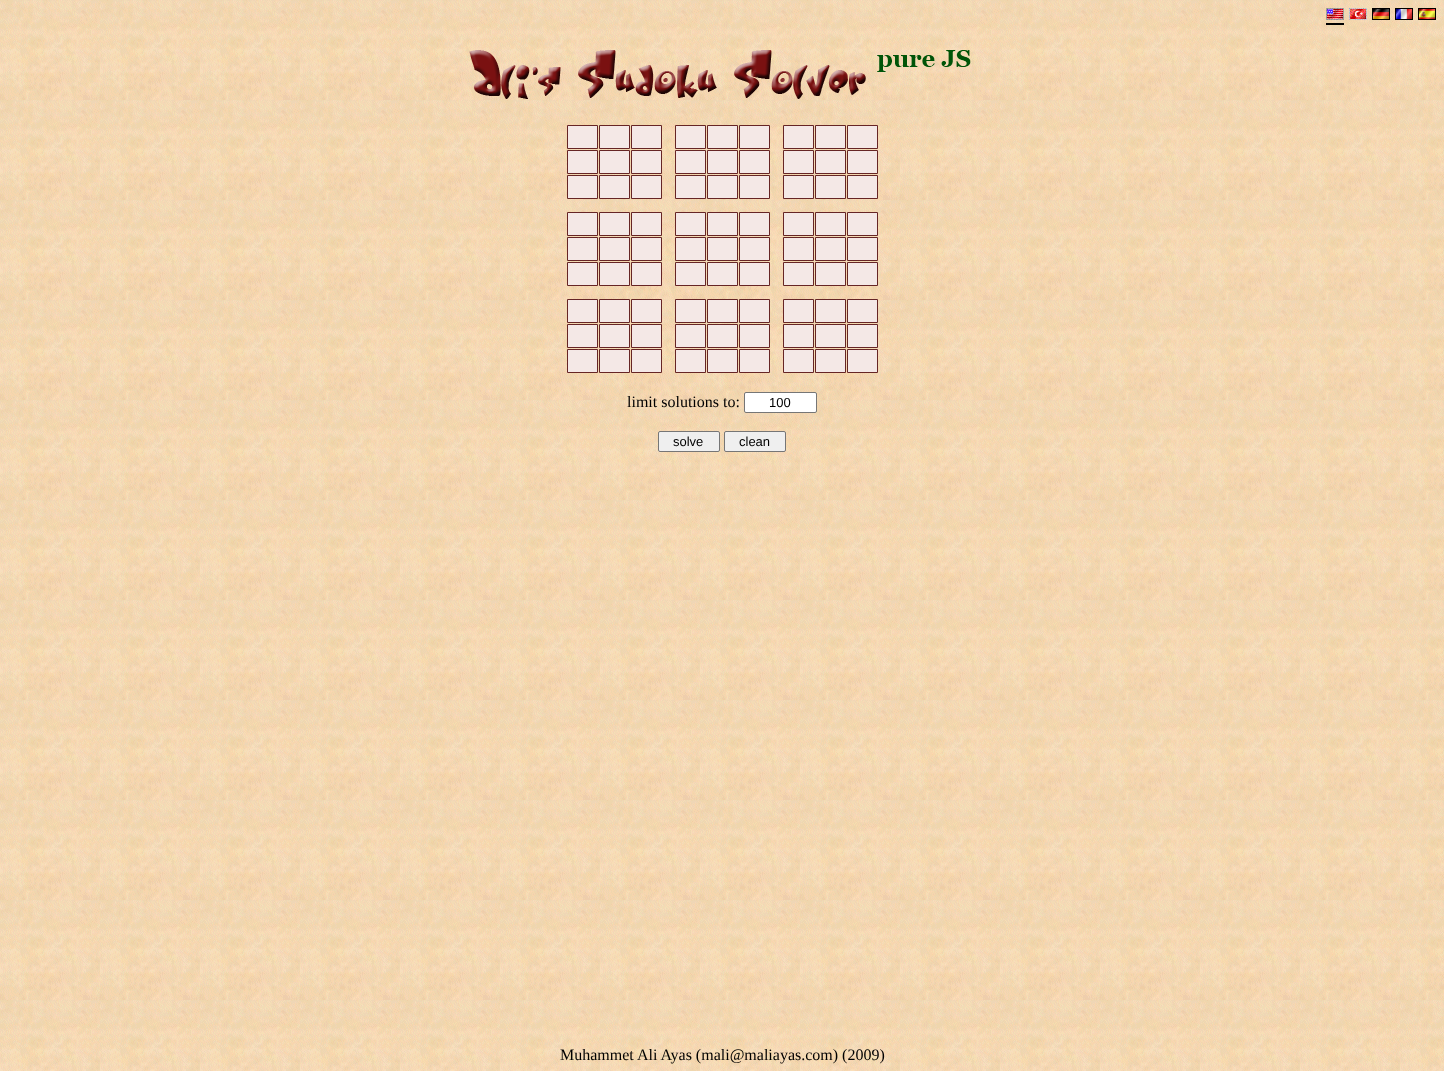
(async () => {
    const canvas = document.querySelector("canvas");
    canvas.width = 1444;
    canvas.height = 1071;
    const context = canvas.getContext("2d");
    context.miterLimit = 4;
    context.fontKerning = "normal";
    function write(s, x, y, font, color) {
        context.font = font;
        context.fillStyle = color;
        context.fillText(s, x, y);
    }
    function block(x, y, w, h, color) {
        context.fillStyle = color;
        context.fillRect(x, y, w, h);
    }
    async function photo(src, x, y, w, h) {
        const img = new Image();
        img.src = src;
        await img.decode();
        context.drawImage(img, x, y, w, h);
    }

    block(0, 0, 1444, 1071, "rgb(255, 255, 255)");
    await photo("media/1.png", 0, 0, 1444, 1071);
    await photo("media/2.png", 1326, 8, 18, 12);
    await photo("media/3.png", 1349, 8, 18, 12);
    await photo("media/4.png", 1372, 8, 18, 12);
    await photo("media/5.png", 1395, 8, 18, 12);
    await photo("media/6.png", 1418, 8, 18, 12);
    block(1326, 23, 18, 2, "rgb(0, 0, 0)");
    await photo("media/7.png", 469, 50, 502, 49);
    context.fillStyle = "rgb(244, 232, 230)";
    context.beginPath();
    context.rect(567.5, 125.5, 30, 23);
    context.fill();
    context.strokeStyle = "rgb(102, 37, 37)";
    context.stroke();
    context.beginPath();
    context.rect(599.5, 125.5, 30, 23);
    context.fill();
    context.stroke();
    context.beginPath();
    context.rect(631.5, 125.5, 30, 23);
    context.fill();
    context.stroke();
    context.beginPath();
    context.rect(675.5, 125.5, 30, 23);
    context.fill();
    context.stroke();
    context.beginPath();
    context.rect(707.5, 125.5, 30, 23);
    context.fill();
    context.stroke();
    context.beginPath();
    context.rect(739.5, 125.5, 30, 23);
    context.fill();
    context.stroke();
    context.beginPath();
    context.rect(783.5, 125.5, 30, 23);
    context.fill();
    context.stroke();
    context.beginPath();
    context.rect(815.5, 125.5, 30, 23);
    context.fill();
    context.stroke();
    context.beginPath();
    context.rect(847.5, 125.5, 30, 23);
    context.fill();
    context.stroke();
    context.beginPath();
    context.rect(567.5, 150.5, 30, 23);
    context.fill();
    context.stroke();
    context.beginPath();
    context.rect(599.5, 150.5, 30, 23);
    context.fill();
    context.stroke();
    context.beginPath();
    context.rect(631.5, 150.5, 30, 23);
    context.fill();
    context.stroke();
    context.beginPath();
    context.rect(675.5, 150.5, 30, 23);
    context.fill();
    context.stroke();
    context.beginPath();
    context.rect(707.5, 150.5, 30, 23);
    context.fill();
    context.stroke();
    context.beginPath();
    context.rect(739.5, 150.5, 30, 23);
    context.fill();
    context.stroke();
    context.beginPath();
    context.rect(783.5, 150.5, 30, 23);
    context.fill();
    context.stroke();
    context.beginPath();
    context.rect(815.5, 150.5, 30, 23);
    context.fill();
    context.stroke();
    context.beginPath();
    context.rect(847.5, 150.5, 30, 23);
    context.fill();
    context.stroke();
    context.beginPath();
    context.rect(567.5, 175.5, 30, 23);
    context.fill();
    context.stroke();
    context.beginPath();
    context.rect(599.5, 175.5, 30, 23);
    context.fill();
    context.stroke();
    context.beginPath();
    context.rect(631.5, 175.5, 30, 23);
    context.fill();
    context.stroke();
    context.beginPath();
    context.rect(675.5, 175.5, 30, 23);
    context.fill();
    context.stroke();
    context.beginPath();
    context.rect(707.5, 175.5, 30, 23);
    context.fill();
    context.stroke();
    context.beginPath();
    context.rect(739.5, 175.5, 30, 23);
    context.fill();
    context.stroke();
    context.beginPath();
    context.rect(783.5, 175.5, 30, 23);
    context.fill();
    context.stroke();
    context.beginPath();
    context.rect(815.5, 175.5, 30, 23);
    context.fill();
    context.stroke();
    context.beginPath();
    context.rect(847.5, 175.5, 30, 23);
    context.fill();
    context.stroke();
    context.beginPath();
    context.rect(567.5, 212.5, 30, 23);
    context.fill();
    context.stroke();
    context.beginPath();
    context.rect(599.5, 212.5, 30, 23);
    context.fill();
    context.stroke();
    context.beginPath();
    context.rect(631.5, 212.5, 30, 23);
    context.fill();
    context.stroke();
    context.beginPath();
    context.rect(675.5, 212.5, 30, 23);
    context.fill();
    context.stroke();
    context.beginPath();
    context.rect(707.5, 212.5, 30, 23);
    context.fill();
    context.stroke();
    context.beginPath();
    context.rect(739.5, 212.5, 30, 23);
    context.fill();
    context.stroke();
    context.beginPath();
    context.rect(783.5, 212.5, 30, 23);
    context.fill();
    context.stroke();
    context.beginPath();
    context.rect(815.5, 212.5, 30, 23);
    context.fill();
    context.stroke();
    context.beginPath();
    context.rect(847.5, 212.5, 30, 23);
    context.fill();
    context.stroke();
    context.beginPath();
    context.rect(567.5, 237.5, 30, 23);
    context.fill();
    context.stroke();
    context.beginPath();
    context.rect(599.5, 237.5, 30, 23);
    context.fill();
    context.stroke();
    context.beginPath();
    context.rect(631.5, 237.5, 30, 23);
    context.fill();
    context.stroke();
    context.beginPath();
    context.rect(675.5, 237.5, 30, 23);
    context.fill();
    context.stroke();
    context.beginPath();
    context.rect(707.5, 237.5, 30, 23);
    context.fill();
    context.stroke();
    context.beginPath();
    context.rect(739.5, 237.5, 30, 23);
    context.fill();
    context.stroke();
    context.beginPath();
    context.rect(783.5, 237.5, 30, 23);
    context.fill();
    context.stroke();
    context.beginPath();
    context.rect(815.5, 237.5, 30, 23);
    context.fill();
    context.stroke();
    context.beginPath();
    context.rect(847.5, 237.5, 30, 23);
    context.fill();
    context.stroke();
    context.beginPath();
    context.rect(567.5, 262.5, 30, 23);
    context.fill();
    context.stroke();
    context.beginPath();
    context.rect(599.5, 262.5, 30, 23);
    context.fill();
    context.stroke();
    context.beginPath();
    context.rect(631.5, 262.5, 30, 23);
    context.fill();
    context.stroke();
    context.beginPath();
    context.rect(675.5, 262.5, 30, 23);
    context.fill();
    context.stroke();
    context.beginPath();
    context.rect(707.5, 262.5, 30, 23);
    context.fill();
    context.stroke();
    context.beginPath();
    context.rect(739.5, 262.5, 30, 23);
    context.fill();
    context.stroke();
    context.beginPath();
    context.rect(783.5, 262.5, 30, 23);
    context.fill();
    context.stroke();
    context.beginPath();
    context.rect(815.5, 262.5, 30, 23);
    context.fill();
    context.stroke();
    context.beginPath();
    context.rect(847.5, 262.5, 30, 23);
    context.fill();
    context.stroke();
    context.beginPath();
    context.rect(567.5, 299.5, 30, 23);
    context.fill();
    context.stroke();
    context.beginPath();
    context.rect(599.5, 299.5, 30, 23);
    context.fill();
    context.stroke();
    context.beginPath();
    context.rect(631.5, 299.5, 30, 23);
    context.fill();
    context.stroke();
    context.beginPath();
    context.rect(675.5, 299.5, 30, 23);
    context.fill();
    context.stroke();
    context.beginPath();
    context.rect(707.5, 299.5, 30, 23);
    context.fill();
    context.stroke();
    context.beginPath();
    context.rect(739.5, 299.5, 30, 23);
    context.fill();
    context.stroke();
    context.beginPath();
    context.rect(783.5, 299.5, 30, 23);
    context.fill();
    context.stroke();
    context.beginPath();
    context.rect(815.5, 299.5, 30, 23);
    context.fill();
    context.stroke();
    context.beginPath();
    context.rect(847.5, 299.5, 30, 23);
    context.fill();
    context.stroke();
    context.beginPath();
    context.rect(567.5, 324.5, 30, 23);
    context.fill();
    context.stroke();
    context.beginPath();
    context.rect(599.5, 324.5, 30, 23);
    context.fill();
    context.stroke();
    context.beginPath();
    context.rect(631.5, 324.5, 30, 23);
    context.fill();
    context.stroke();
    context.beginPath();
    context.rect(675.5, 324.5, 30, 23);
    context.fill();
    context.stroke();
    context.beginPath();
    context.rect(707.5, 324.5, 30, 23);
    context.fill();
    context.stroke();
    context.beginPath();
    context.rect(739.5, 324.5, 30, 23);
    context.fill();
    context.stroke();
    context.beginPath();
    context.rect(783.5, 324.5, 30, 23);
    context.fill();
    context.stroke();
    context.beginPath();
    context.rect(815.5, 324.5, 30, 23);
    context.fill();
    context.stroke();
    context.beginPath();
    context.rect(847.5, 324.5, 30, 23);
    context.fill();
    context.stroke();
    context.beginPath();
    context.rect(567.5, 349.5, 30, 23);
    context.fill();
    context.stroke();
    context.beginPath();
    context.rect(599.5, 349.5, 30, 23);
    context.fill();
    context.stroke();
    context.beginPath();
    context.rect(631.5, 349.5, 30, 23);
    context.fill();
    context.stroke();
    context.beginPath();
    context.rect(675.5, 349.5, 30, 23);
    context.fill();
    context.stroke();
    context.beginPath();
    context.rect(707.5, 349.5, 30, 23);
    context.fill();
    context.stroke();
    context.beginPath();
    context.rect(739.5, 349.5, 30, 23);
    context.fill();
    context.stroke();
    context.beginPath();
    context.rect(783.5, 349.5, 30, 23);
    context.fill();
    context.stroke();
    context.beginPath();
    context.rect(815.5, 349.5, 30, 23);
    context.fill();
    context.stroke();
    context.beginPath();
    context.rect(847.5, 349.5, 30, 23);
    context.fill();
    context.stroke();
    write("limit solutions to:", 627, 407, "16px Liberation Serif", "rgb(0, 0, 0)");
    context.fillStyle = "rgb(255, 255, 255)";
    context.beginPath();
    context.roundRect(744.5, 392.5, 72, 20, 1.5);
    context.fill();
    context.strokeStyle = "rgb(118, 118, 118)";
    context.stroke();
    write("100", 769, 407, "13px Liberation Sans", "rgb(0, 0, 0)");
    context.fillStyle = "rgb(239, 239, 239)";
    context.beginPath();
    context.roundRect(658.5, 431.5, 61, 20, 1.5);
    context.fill();
    context.stroke();
    write("solve", 673, 446, "13px Liberation Sans", "rgb(0, 0, 0)");
    context.fillStyle = "rgb(239, 239, 239)";
    context.beginPath();
    context.roundRect(724.5, 431.5, 61, 20, 1.5);
    context.fill();
    context.stroke();
    write("clean", 739, 446, "13px Liberation Sans", "rgb(0, 0, 0)");
    write("Muhammet Ali Ayas (mali@maliayas.com) (2009)", 560, 1060, "16px Liberation Serif", "rgb(0, 0, 0)");
})();
